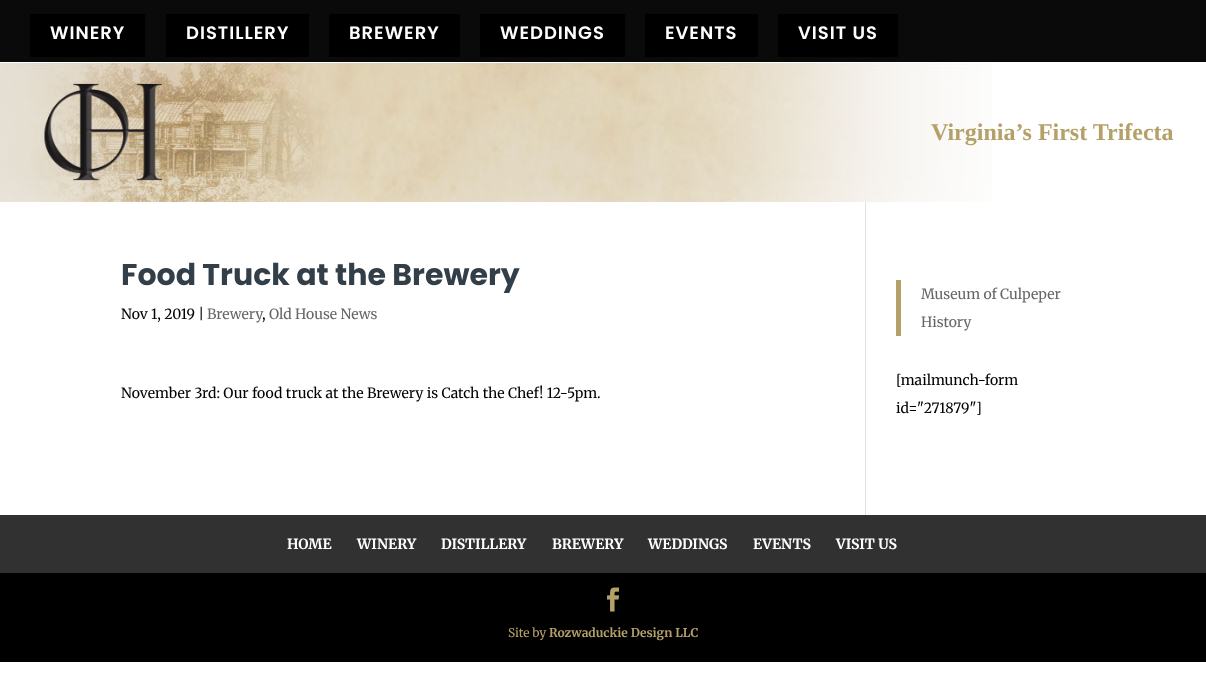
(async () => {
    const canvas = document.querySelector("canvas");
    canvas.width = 1206;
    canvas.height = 676;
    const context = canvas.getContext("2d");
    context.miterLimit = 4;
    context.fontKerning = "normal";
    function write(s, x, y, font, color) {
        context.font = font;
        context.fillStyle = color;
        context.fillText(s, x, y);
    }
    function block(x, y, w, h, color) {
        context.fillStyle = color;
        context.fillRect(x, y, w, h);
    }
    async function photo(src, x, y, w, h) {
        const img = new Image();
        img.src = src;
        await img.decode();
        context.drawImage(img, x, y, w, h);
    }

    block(0, 0, 1206, 676, "rgb(255, 255, 255)");
    block(0, 0, 1206, 62, "rgb(10, 10, 10)");
    block(30, 14, 115, 43, "rgb(0, 0, 0)");
    context.letterSpacing = "1px";
    write("WINERY", 50, 39, "600 18px Poppins", "rgb(255, 255, 255)");
    block(166, 14, 143, 43, "rgb(0, 0, 0)");
    write("DISTILLERY", 186, 39, "600 18px Poppins", "rgb(255, 255, 255)");
    block(329, 14, 131, 43, "rgb(0, 0, 0)");
    write("BREWERY", 349, 39, "600 18px Poppins", "rgb(255, 255, 255)");
    block(480, 14, 145, 43, "rgb(0, 0, 0)");
    write("WEDDINGS", 500, 39, "600 18px Poppins", "rgb(255, 255, 255)");
    block(645, 14, 113, 43, "rgb(0, 0, 0)");
    write("EVENTS", 665, 39, "600 18px Poppins", "rgb(255, 255, 255)");
    block(778, 14, 120, 43, "rgb(0, 0, 0)");
    write("VISIT US", 798, 39, "600 18px Poppins", "rgb(255, 255, 255)");
    await photo("media/1.png", 0, 62, 992, 140);
    await photo("media/2.png", 44, 83, 118, 98);
    context.letterSpacing = "0px";
    write("Virginia’s First Trifecta", 931, 140, "bold 24px Liberation Serif", "rgb(180, 161, 105)");
    block(865, 202, 1, 313, "rgb(226, 226, 226)");
    write("Food Truck at the Brewery", 121, 285, "bold 30px Poppins", "rgb(50, 62, 72)");
    write("Nov 1, 2019 |", 121, 319, "14px Merriweather", "rgb(0, 0, 0)");
    write("Brewery", 207, 319, "14px Merriweather", "rgb(102, 102, 102)");
    write("Old House News", 269, 319, "14px Merriweather", "rgb(102, 102, 102)");
    write(",", 262, 319, "14px Merriweather", "rgb(0, 0, 0)");
    write("November 3rd: Our food truck at the Brewery is Catch the Chef! 12-5pm.", 121, 398, "14px Merriweather", "rgb(0, 0, 0)");
    block(896, 280, 5, 56, "rgb(180, 161, 105)");
    write("Museum of Culpeper", 921, 299, "14px Merriweather", "rgb(102, 102, 102)");
    write("History", 921, 327, "14px Merriweather", "rgb(102, 102, 102)");
    write("[mailmunch-form", 896, 385, "14px Merriweather", "rgb(0, 0, 0)");
    write("id=\"271879\"]", 896, 413, "14px Merriweather", "rgb(0, 0, 0)");
    block(0, 573, 1206, 89, "rgb(0, 0, 0)");
    block(0, 515, 1206, 58, "rgb(49, 49, 49)");
    write("HOME", 287, 549, "bold 14px Merriweather", "rgb(255, 255, 255)");
    write("WINERY", 357, 549, "bold 14px Merriweather", "rgb(255, 255, 255)");
    write("DISTILLERY", 441, 549, "bold 14px Merriweather", "rgb(255, 255, 255)");
    write("BREWERY", 552, 549, "bold 14px Merriweather", "rgb(255, 255, 255)");
    write("WEDDINGS", 648, 549, "bold 14px Merriweather", "rgb(255, 255, 255)");
    write("EVENTS", 753, 549, "bold 14px Merriweather", "rgb(255, 255, 255)");
    write("VISIT US", 836, 549, "bold 14px Merriweather", "rgb(255, 255, 255)");
    await photo("media/3.png", 607, 587, 13, 25);
    write("Site by", 508, 637, "12px Merriweather", "rgb(180, 161, 105)");
    write("Rozwaduckie Design LLC", 549, 637, "bold 12px Merriweather", "rgb(180, 161, 105)");
})();
